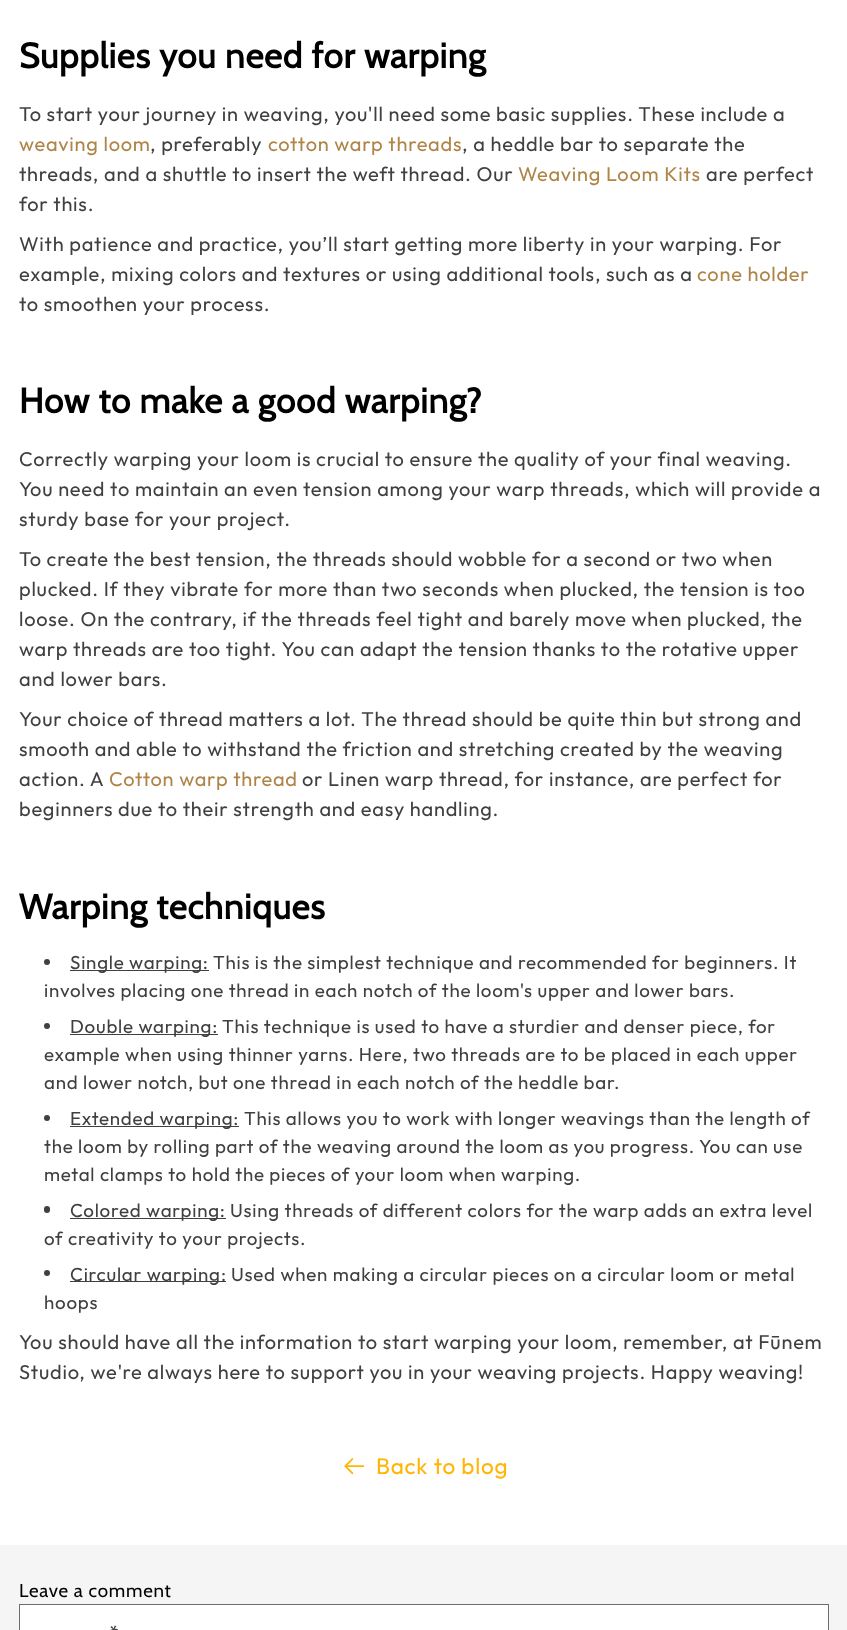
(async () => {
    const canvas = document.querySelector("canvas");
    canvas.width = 847;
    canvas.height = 1630;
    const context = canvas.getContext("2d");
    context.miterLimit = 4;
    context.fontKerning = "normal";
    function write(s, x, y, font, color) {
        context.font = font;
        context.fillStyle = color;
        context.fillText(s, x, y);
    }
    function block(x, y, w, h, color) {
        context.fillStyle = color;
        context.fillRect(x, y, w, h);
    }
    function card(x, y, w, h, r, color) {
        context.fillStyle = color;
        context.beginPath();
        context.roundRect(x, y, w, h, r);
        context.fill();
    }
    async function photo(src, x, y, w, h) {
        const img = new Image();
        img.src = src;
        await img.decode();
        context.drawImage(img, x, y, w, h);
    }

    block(0, 0, 847, 1630, "rgb(255, 255, 255)");
    context.letterSpacing = "0.75px";
    write("Supplies you need for warping", 19, 68, "bold 35px Cabin", "rgb(0, 0, 0)");
    write("To start your journey in weaving, you'll need some basic supplies. These include a", 19, 121, "20px Outfit", "rgb(64, 64, 64)");
    write("weaving loom", 19, 151, "20px Outfit", "rgb(174, 133, 71)");
    write(", preferably", 150, 151, "20px Outfit", "rgb(64, 64, 64)");
    write("cotton warp threads", 268, 151, "20px Outfit", "rgb(174, 133, 71)");
    write(", a heddle bar to separate the", 462, 151, "20px Outfit", "rgb(64, 64, 64)");
    write("threads, and a shuttle to insert the weft thread. Our", 19, 181, "20px Outfit", "rgb(64, 64, 64)");
    write("Weaving Loom Kits", 518, 181, "20px Outfit", "rgb(174, 133, 71)");
    write("are perfect", 706, 181, "20px Outfit", "rgb(64, 64, 64)");
    write("for this.", 19, 211, "20px Outfit", "rgb(64, 64, 64)");
    write("With patience and practice, you’ll start getting more liberty in your warping. For", 19, 251, "20px Outfit", "rgb(64, 64, 64)");
    write("example, mixing colors and textures or using additional tools, such as a", 19, 281, "20px Outfit", "rgb(64, 64, 64)");
    write("cone holder", 697, 281, "20px Outfit", "rgb(174, 133, 71)");
    write("to smoothen your process.", 19, 311, "20px Outfit", "rgb(64, 64, 64)");
    write("How to make a good warping?", 19, 413, "bold 35px Cabin", "rgb(0, 0, 0)");
    write("Correctly warping your loom is crucial to ensure the quality of your final weaving.", 19, 466, "20px Outfit", "rgb(64, 64, 64)");
    write("You need to maintain an even tension among your warp threads, which will provide a", 19, 496, "20px Outfit", "rgb(64, 64, 64)");
    write("sturdy base for your project.", 19, 526, "20px Outfit", "rgb(64, 64, 64)");
    write("To create the best tension, the threads should wobble for a second or two when", 19, 566, "20px Outfit", "rgb(64, 64, 64)");
    write("plucked. If they vibrate for more than two seconds when plucked, the tension is too", 19, 596, "20px Outfit", "rgb(64, 64, 64)");
    write("loose. On the contrary, if the threads feel tight and barely move when plucked, the", 19, 626, "20px Outfit", "rgb(64, 64, 64)");
    write("warp threads are too tight. You can adapt the tension thanks to the rotative upper", 19, 656, "20px Outfit", "rgb(64, 64, 64)");
    write("and lower bars.", 19, 686, "20px Outfit", "rgb(64, 64, 64)");
    write("Your choice of thread matters a lot. The thread should be quite thin but strong and", 19, 726, "20px Outfit", "rgb(64, 64, 64)");
    write("smooth and able to withstand the friction and stretching created by the weaving", 19, 756, "20px Outfit", "rgb(64, 64, 64)");
    write("action. A", 19, 786, "20px Outfit", "rgb(64, 64, 64)");
    write("Cotton warp thread", 109, 786, "20px Outfit", "rgb(174, 133, 71)");
    write("or Linen warp thread, for instance, are perfect for", 302, 786, "20px Outfit", "rgb(64, 64, 64)");
    write("beginners due to their strength and easy handling.", 19, 816, "20px Outfit", "rgb(64, 64, 64)");
    write("Warping techniques", 19, 919, "bold 35px Cabin", "rgb(0, 0, 0)");
    context.fillStyle = "rgb(64, 64, 64)";
    context.beginPath();
    context.arc(47, 962, 3, 0, Math.PI * 2);
    context.fill();
    block(70, 970, 139, 1, "rgb(64, 64, 64)");
    write("Single warping:", 70, 969, "18.75px Outfit", "rgb(64, 64, 64)");
    write("This is the simplest technique and recommended for beginners. It", 213, 969, "18.75px Outfit", "rgb(64, 64, 64)");
    write("involves placing one thread in each notch of the loom's upper and lower bars.", 44, 997, "18.75px Outfit", "rgb(64, 64, 64)");
    context.beginPath();
    context.arc(47, 1026, 3, 0, Math.PI * 2);
    context.fill();
    block(70, 1034, 148, 1, "rgb(64, 64, 64)");
    write("Double warping:", 70, 1033, "18.75px Outfit", "rgb(64, 64, 64)");
    write("This technique is used to have a sturdier and denser piece, for", 222, 1033, "18.75px Outfit", "rgb(64, 64, 64)");
    write("example when using thinner yarns. Here, two threads are to be placed in each upper", 44, 1061, "18.75px Outfit", "rgb(64, 64, 64)");
    write("and lower notch, but one thread in each notch of the heddle bar.", 44, 1089, "18.75px Outfit", "rgb(64, 64, 64)");
    context.beginPath();
    context.arc(47, 1118, 3, 0, Math.PI * 2);
    context.fill();
    block(70, 1126, 169, 1, "rgb(64, 64, 64)");
    write("Extended warping:", 70, 1125, "18.75px Outfit", "rgb(64, 64, 64)");
    write("This allows you to work with longer weavings than the length of", 244, 1125, "18.75px Outfit", "rgb(64, 64, 64)");
    write("the loom by rolling part of the weaving around the loom as you progress. You can use", 44, 1153, "18.75px Outfit", "rgb(64, 64, 64)");
    write("metal clamps to hold the pieces of your loom when warping.", 44, 1181, "18.75px Outfit", "rgb(64, 64, 64)");
    card(44, 1206, 6, 7, 3, "rgb(64, 64, 64)");
    block(70, 1218, 156, 1, "rgb(64, 64, 64)");
    write("Colored warping:", 70, 1217, "18.75px Outfit", "rgb(64, 64, 64)");
    write("Using threads of different colors for the warp adds an extra level", 230, 1217, "18.75px Outfit", "rgb(64, 64, 64)");
    write("of creativity to your projects.", 44, 1245, "18.75px Outfit", "rgb(64, 64, 64)");
    context.beginPath();
    context.arc(47, 1273, 3, 0, Math.PI * 2);
    context.fill();
    block(70, 1281, 156, 1, "rgb(64, 64, 64)");
    write("Circular warping", 70, 1281, "18.75px Outfit", "rgb(64, 64, 64)");
    write(":", 221, 1281, "18.75px Outfit", "rgb(64, 64, 64)");
    write("Used when making a circular pieces on a circular loom or metal", 231, 1281, "18.75px Outfit", "rgb(64, 64, 64)");
    write("hoops", 44, 1309, "18.75px Outfit", "rgb(64, 64, 64)");
    write("You should have all the information to start warping your loom, remember, at Fūnem", 19, 1349, "20px Outfit", "rgb(64, 64, 64)");
    write("Studio, we're always here to support you in your weaving projects. Happy weaving!", 19, 1379, "20px Outfit", "rgb(64, 64, 64)");
    await photo("media/1.png", 344, 1458, 20, 17);
    write("Back to blog", 376, 1474, "22.5px Outfit", "rgb(255, 181, 2)");
    block(0, 1545, 847, 85, "rgb(245, 245, 245)");
    write("Leave a comment", 19, 1597, "18.75px Cabin", "rgb(0, 0, 0)");
    block(20, 1605, 808, 25, "rgb(255, 255, 255)");
    context.strokeStyle = "rgb(110, 110, 110)";
    context.strokeRect(19.5, 1604.5, 809, 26);
    context.letterSpacing = "1px";
    write("*", 109, 1640, "20px Outfit", "rgb(64, 64, 64)");
})();
